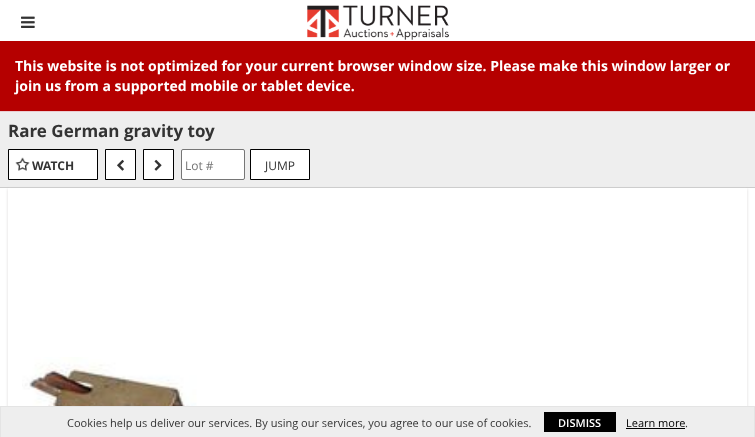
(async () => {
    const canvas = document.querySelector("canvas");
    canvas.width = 755;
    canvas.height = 437;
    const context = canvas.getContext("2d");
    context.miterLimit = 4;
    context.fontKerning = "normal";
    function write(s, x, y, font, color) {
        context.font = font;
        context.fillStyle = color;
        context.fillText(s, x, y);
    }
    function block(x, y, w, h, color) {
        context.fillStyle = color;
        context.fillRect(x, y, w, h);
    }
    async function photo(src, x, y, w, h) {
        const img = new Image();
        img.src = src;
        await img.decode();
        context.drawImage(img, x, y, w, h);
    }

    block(0, 0, 755, 437, "rgb(255, 255, 255)");
    await photo("media/1.png", 21, 16, 14, 12);
    await photo("media/2.png", 307, 5, 142, 35);
    block(0, 41, 755, 70, "rgb(181, 0, 0)");
    block(0, 111, 755, 1, "rgb(235, 204, 209)");
    write("This website is not optimized for your current browser window size. Please make this window larger or", 15, 71, "bold 14px Open Sans", "rgb(255, 255, 255)");
    write("join us from a supported mobile or tablet device.", 15, 91, "bold 14px Open Sans", "rgb(255, 255, 255)");
    block(0, 112, 755, 75, "rgb(238, 238, 238)");
    block(0, 187, 755, 1, "rgb(204, 204, 204)");
    write("Rare German gravity toy", 8, 137, "bold 17px Open Sans", "rgb(51, 51, 51)");
    context.fillStyle = "rgb(255, 255, 255)";
    context.beginPath();
    context.rect(8.5, 149.5, 89, 30);
    context.fill();
    context.strokeStyle = "rgb(0, 0, 0)";
    context.stroke();
    await photo("media/3.png", 15, 157, 15, 14);
    write("WATCH", 32, 170, "bold 12px Open Sans", "rgb(51, 51, 51)");
    context.fillStyle = "rgb(255, 255, 255)";
    context.beginPath();
    context.rect(105.5, 149.5, 30, 30);
    context.fill();
    context.stroke();
    await photo("media/4.png", 117, 159, 7, 12);
    context.beginPath();
    context.rect(143.5, 149.5, 30, 30);
    context.fill();
    context.stroke();
    await photo("media/5.png", 154, 159, 8, 12);
    context.beginPath();
    context.roundRect(181.5, 149.5, 63, 30, 1.5);
    context.fill();
    context.strokeStyle = "rgb(118, 118, 118)";
    context.stroke();
    write("Lot #", 185, 170, "12px Open Sans", "rgb(117, 117, 117)");
    context.fillStyle = "rgb(255, 255, 255)";
    context.beginPath();
    context.rect(250.5, 149.5, 59, 30);
    context.fill();
    context.strokeStyle = "rgb(0, 0, 0)";
    context.stroke();
    write("JUMP", 265, 170, "12px Open Sans", "rgb(51, 51, 51)");
    context.save();
    context.beginPath();
    context.moveTo(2, 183);
    context.lineTo(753, 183);
    context.lineTo(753, 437);
    context.lineTo(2, 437);
    context.closePath();
    context.moveTo(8, 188);
    context.lineTo(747, 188);
    context.lineTo(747, 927);
    context.lineTo(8, 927);
    context.closePath();
    context.clip("evenodd");
    context.fillStyle = "rgb(218, 217, 215)";
    context.filter = "blur(1.5px)";
    context.beginPath();
    context.rect(8, 189, 739, 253);
    context.fill();
    context.filter = "none";
    context.restore();
    await photo("media/6.png", 22, 357, 175, 49);
    block(1, 407, 753, 30, "rgb(238, 238, 238)");
    block(0, 406, 755, 1, "rgb(228, 228, 228)");
    block(754, 406, 1, 31, "rgb(228, 228, 228)");
    block(0, 406, 1, 31, "rgb(228, 228, 228)");
    write("Cookies help us deliver our services. By using our services, you agree to our use of cookies.", 67, 427, "11px Open Sans", "rgb(51, 51, 51)");
    block(544, 412, 72, 20, "rgb(0, 0, 0)");
    write("DISMISS", 558, 427, "600 11px Open Sans", "rgb(255, 255, 255)");
    write("Learn more", 626, 427, "11px Open Sans", "rgb(0, 0, 0)");
    block(626, 428, 59, 1, "rgb(0, 0, 0)");
    write(".", 685, 427, "11px Open Sans", "rgb(51, 51, 51)");
})();
